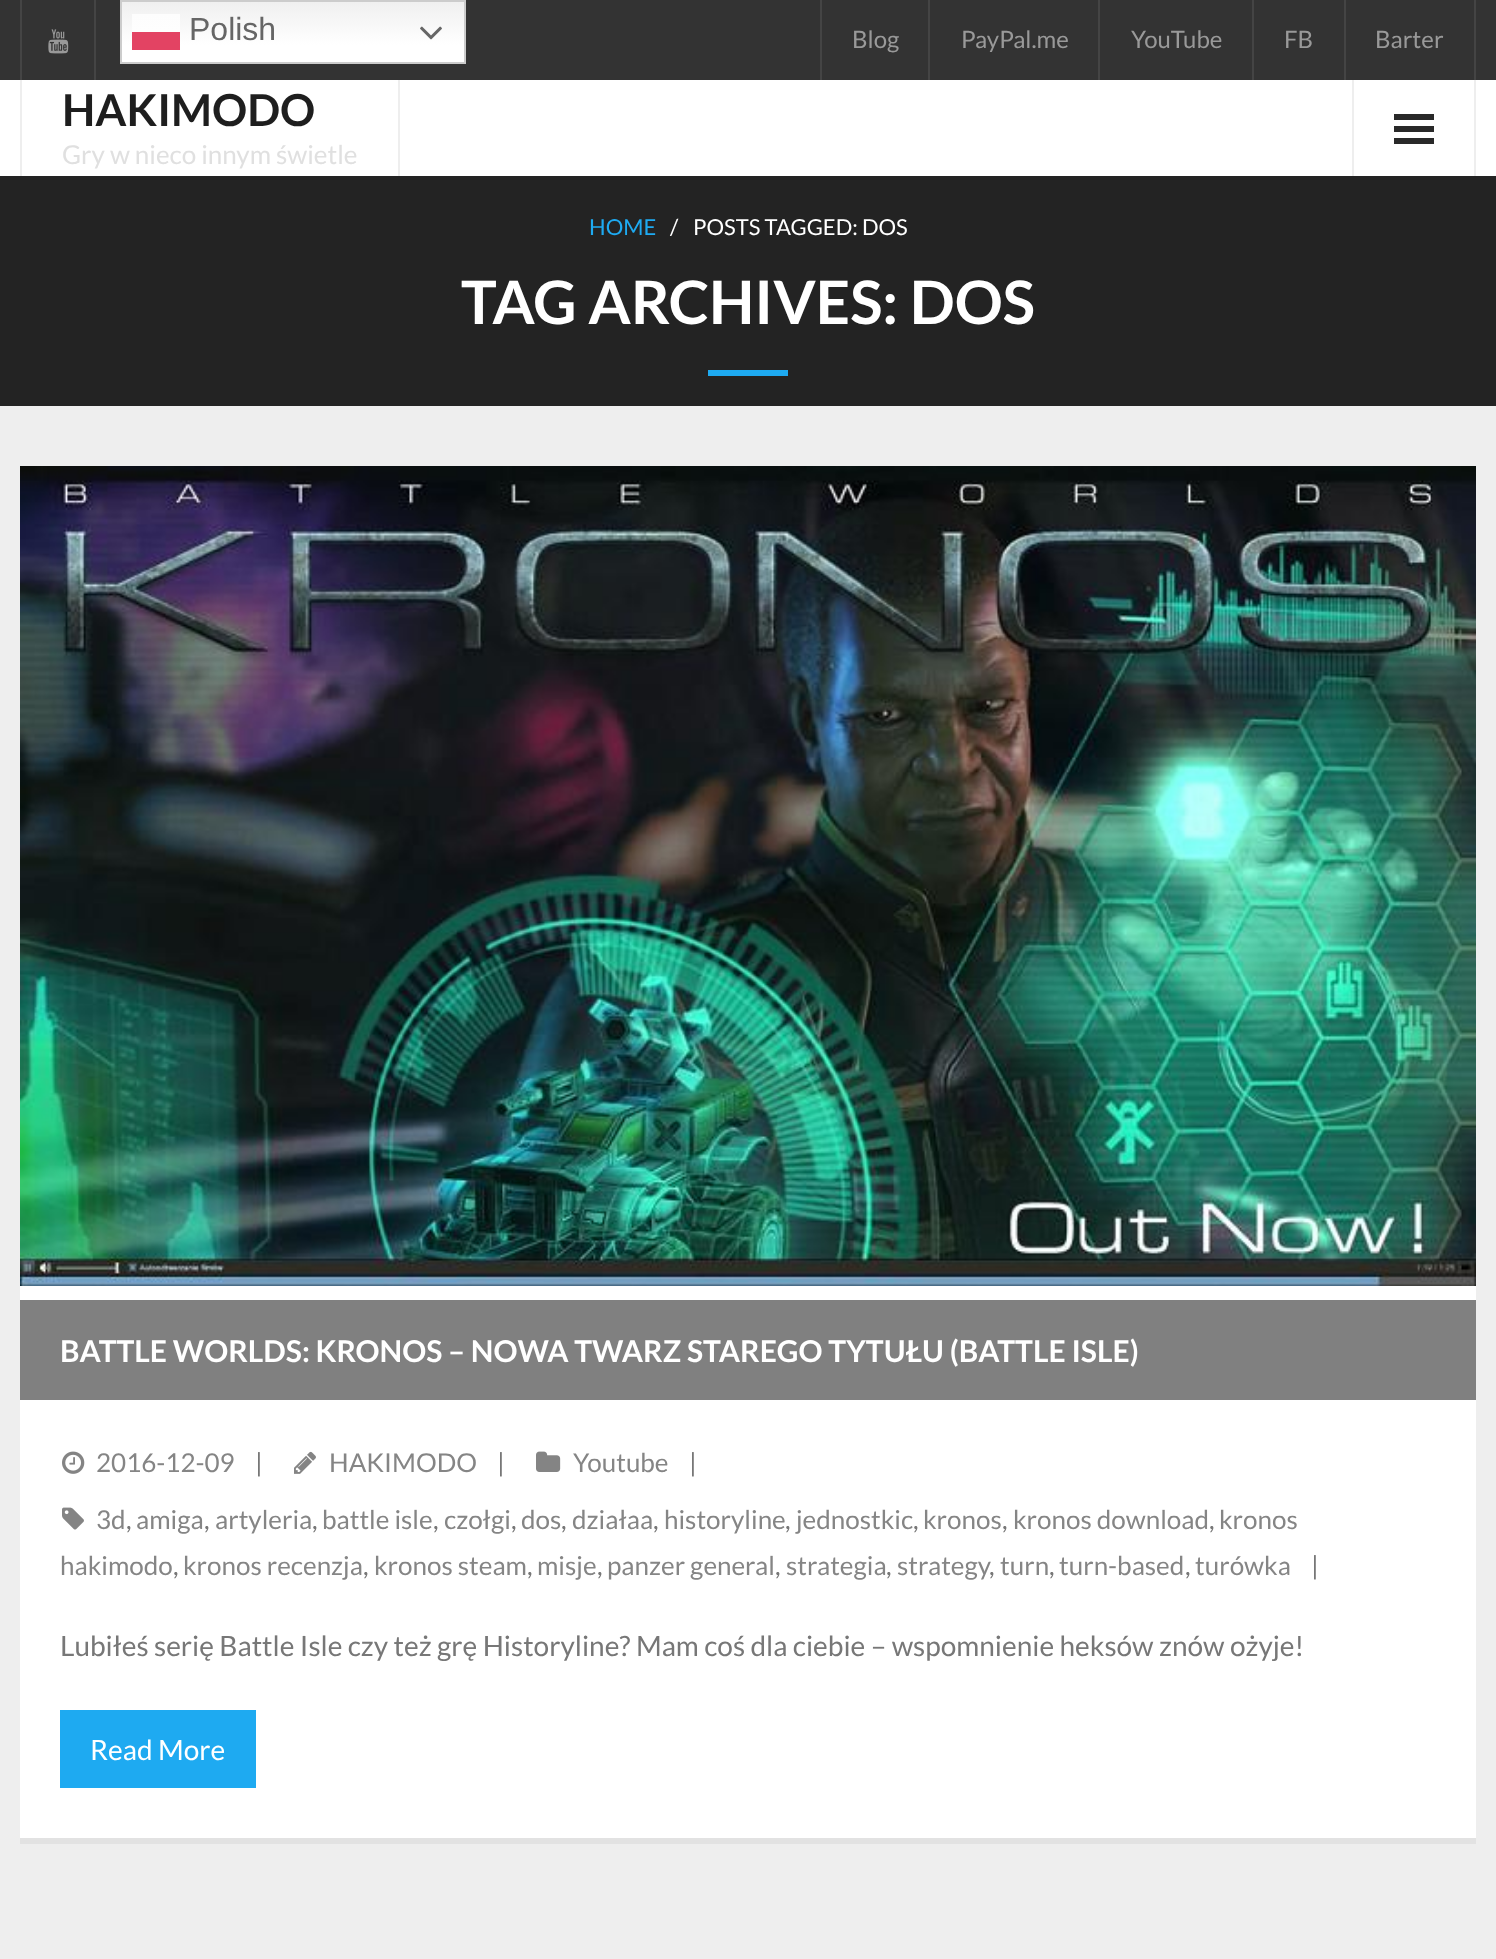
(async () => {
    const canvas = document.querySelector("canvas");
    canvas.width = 1496;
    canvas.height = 1959;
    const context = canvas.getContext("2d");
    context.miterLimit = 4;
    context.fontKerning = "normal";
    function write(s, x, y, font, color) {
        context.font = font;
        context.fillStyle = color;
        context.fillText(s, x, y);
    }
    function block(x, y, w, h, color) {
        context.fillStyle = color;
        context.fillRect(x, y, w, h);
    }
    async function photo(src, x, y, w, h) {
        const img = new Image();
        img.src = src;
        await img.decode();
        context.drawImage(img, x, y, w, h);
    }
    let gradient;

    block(0, 0, 1496, 1959, "rgb(238, 238, 238)");
    block(0, 0, 1496, 80, "rgb(51, 51, 51)");
    gradient = context.createLinearGradient(293, 0, 293, 64);
    gradient.addColorStop(0, "rgb(239, 239, 239)");
    gradient.addColorStop(0.7, "rgb(255, 255, 255)");
    context.fillStyle = gradient;
    context.fillRect(122, 2, 342, 60);
    gradient = context.createLinearGradient(293, 0, 293, 64);
    gradient.addColorStop(0, "rgb(252, 252, 252)");
    gradient.addColorStop(0.7, "rgb(255, 255, 255)");
    context.fillStyle = gradient;
    context.fillRect(132, 14, 48, 18);
    context.strokeStyle = "rgb(204, 204, 204)";
    context.lineWidth = 2;
    context.strokeRect(121, 1, 344, 62);
    block(132, 32, 48, 18, "rgb(227, 67, 99)");
    write("Polish", 189, 40, "32px Liberation Sans", "rgb(102, 102, 102)");
    await photo("media/1.png", 420, 26, 22, 14);
    block(94, 0, 2, 80, "rgb(68, 68, 68)");
    block(20, 0, 2, 80, "rgb(68, 68, 68)");
    await photo("media/2.png", 48, 29, 21, 25);
    block(820, 0, 2, 80, "rgb(68, 68, 68)");
    write("Blog", 852, 48, "24px Lato", "rgb(153, 153, 153)");
    block(928, 0, 2, 80, "rgb(68, 68, 68)");
    write("PayPal.me", 961, 48, "24px Lato", "rgb(153, 153, 153)");
    block(1098, 0, 2, 80, "rgb(68, 68, 68)");
    write("YouTube", 1131, 48, "24px Lato", "rgb(153, 153, 153)");
    block(1252, 0, 2, 80, "rgb(68, 68, 68)");
    write("FB", 1284, 48, "24px Lato", "rgb(153, 153, 153)");
    block(1474, 0, 2, 80, "rgb(68, 68, 68)");
    block(1344, 0, 2, 80, "rgb(68, 68, 68)");
    write("Barter", 1375, 48, "24px Lato", "rgb(153, 153, 153)");
    block(0, 80, 1496, 96, "rgb(255, 255, 255)");
    block(398, 80, 2, 96, "rgb(238, 238, 238)");
    block(20, 80, 2, 96, "rgb(238, 238, 238)");
    write("HAKIMODO", 62, 126, "bold 44px Lato", "rgb(30, 30, 30)");
    write("Gry w nieco innym świetle", 62, 164, "26px Lato", "rgb(224, 224, 224)");
    block(1474, 80, 2, 96, "rgb(238, 238, 238)");
    block(1352, 80, 2, 96, "rgb(238, 238, 238)");
    block(1394, 114, 40, 6, "rgb(41, 41, 41)");
    block(1394, 126, 40, 6, "rgb(41, 41, 41)");
    block(1394, 138, 40, 6, "rgb(41, 41, 41)");
    block(0, 176, 1496, 230, "rgb(35, 35, 35)");
    write("HOME", 589, 235, "22px Lato", "rgb(30, 170, 241)");
    write("/", 670, 235, "22px Lato", "rgb(255, 255, 255)");
    write("POSTS TAGGED: DOS", 693, 235, "22px Lato", "rgb(255, 255, 255)");
    write("TAG ARCHIVES: DOS", 461, 324, "bold 60px Lato", "rgb(255, 255, 255)");
    block(708, 370, 80, 6, "rgb(30, 170, 241)");
    block(20, 1286, 1456, 552, "rgb(255, 255, 255)");
    block(20, 1838, 1456, 6, "rgb(226, 226, 226)");
    await photo("media/3.png", 20, 466, 1456, 820);
    block(20, 1300, 1456, 100, "rgb(128, 128, 128)");
    write("BATTLE WORLDS: KRONOS – NOWA TWARZ STAREGO TYTUŁU (BATTLE ISLE)", 60, 1362, "bold 30px Lato", "rgb(255, 255, 255)");
    await photo("media/4.png", 62, 1451, 23, 23);
    write("2016-12-09", 96, 1472, "26px Lato", "rgb(133, 133, 133)");
    write("|", 255, 1472, "26px Lato", "rgb(119, 119, 119)");
    await photo("media/5.png", 294, 1451, 22, 23);
    write("HAKIMODO", 329, 1472, "26px Lato", "rgb(133, 133, 133)");
    write("|", 497, 1472, "26px Lato", "rgb(119, 119, 119)");
    await photo("media/6.png", 536, 1451, 25, 21);
    write("Youtube", 573, 1472, "26px Lato", "rgb(133, 133, 133)");
    write("|", 689, 1472, "26px Lato", "rgb(119, 119, 119)");
    await photo("media/7.png", 62, 1507, 22, 23);
    write("3d", 96, 1529, "26px Lato", "rgb(133, 133, 133)");
    write(",", 126, 1529, "26px Lato", "rgb(119, 119, 119)");
    write("amiga", 136, 1529, "26px Lato", "rgb(133, 133, 133)");
    write(",", 204, 1529, "26px Lato", "rgb(119, 119, 119)");
    write("artyleria", 215, 1529, "26px Lato", "rgb(133, 133, 133)");
    write(",", 312, 1529, "26px Lato", "rgb(119, 119, 119)");
    write("battle isle", 322, 1529, "26px Lato", "rgb(133, 133, 133)");
    write(",", 433, 1529, "26px Lato", "rgb(119, 119, 119)");
    write("czołgi", 444, 1529, "26px Lato", "rgb(133, 133, 133)");
    write(",", 511, 1529, "26px Lato", "rgb(119, 119, 119)");
    write("dos", 521, 1529, "26px Lato", "rgb(133, 133, 133)");
    write(",", 561, 1529, "26px Lato", "rgb(119, 119, 119)");
    write("działaa", 572, 1529, "26px Lato", "rgb(133, 133, 133)");
    write(",", 653, 1529, "26px Lato", "rgb(119, 119, 119)");
    write("historyline", 664, 1529, "26px Lato", "rgb(133, 133, 133)");
    write(",", 785, 1529, "26px Lato", "rgb(119, 119, 119)");
    write("jednostkic", 796, 1529, "26px Lato", "rgb(133, 133, 133)");
    write(",", 913, 1529, "26px Lato", "rgb(119, 119, 119)");
    write("kronos", 923, 1529, "26px Lato", "rgb(133, 133, 133)");
    write(",", 1002, 1529, "26px Lato", "rgb(119, 119, 119)");
    write("kronos download", 1013, 1529, "26px Lato", "rgb(133, 133, 133)");
    write(",", 1209, 1529, "26px Lato", "rgb(119, 119, 119)");
    write("kronos", 1219, 1529, "26px Lato", "rgb(133, 133, 133)");
    write("hakimodo", 60, 1575, "26px Lato", "rgb(133, 133, 133)");
    write(",", 173, 1575, "26px Lato", "rgb(119, 119, 119)");
    write("kronos recenzja", 183, 1575, "26px Lato", "rgb(133, 133, 133)");
    write(",", 363, 1575, "26px Lato", "rgb(119, 119, 119)");
    write("kronos steam", 374, 1575, "26px Lato", "rgb(133, 133, 133)");
    write(",", 527, 1575, "26px Lato", "rgb(119, 119, 119)");
    write("misje", 537, 1575, "26px Lato", "rgb(133, 133, 133)");
    write(",", 597, 1575, "26px Lato", "rgb(119, 119, 119)");
    write("panzer general", 607, 1575, "26px Lato", "rgb(133, 133, 133)");
    write(",", 775, 1575, "26px Lato", "rgb(119, 119, 119)");
    write("strategia", 786, 1575, "26px Lato", "rgb(133, 133, 133)");
    write(",", 886, 1575, "26px Lato", "rgb(119, 119, 119)");
    write(",", 989, 1575, "26px Lato", "rgb(119, 119, 119)");
    write("strategy", 897, 1575, "26px Lato", "rgb(133, 133, 133)");
    write("turn", 1000, 1575, "26px Lato", "rgb(133, 133, 133)");
    write(",", 1049, 1575, "26px Lato", "rgb(119, 119, 119)");
    write("turn-based", 1059, 1575, "26px Lato", "rgb(133, 133, 133)");
    write(",", 1185, 1575, "26px Lato", "rgb(119, 119, 119)");
    write("turówka", 1195, 1575, "26px Lato", "rgb(133, 133, 133)");
    write("|", 1311, 1575, "26px Lato", "rgb(119, 119, 119)");
    write("Lubiłeś serię Battle Isle czy też grę Historyline? Mam coś dla ciebie – wspomnienie heksów znów ożyje!", 60, 1656, "28px Lato", "rgb(119, 119, 119)");
    block(60, 1710, 196, 78, "rgb(30, 170, 241)");
    write("Read More", 90, 1760, "28px Lato", "rgb(255, 255, 255)");
})();
